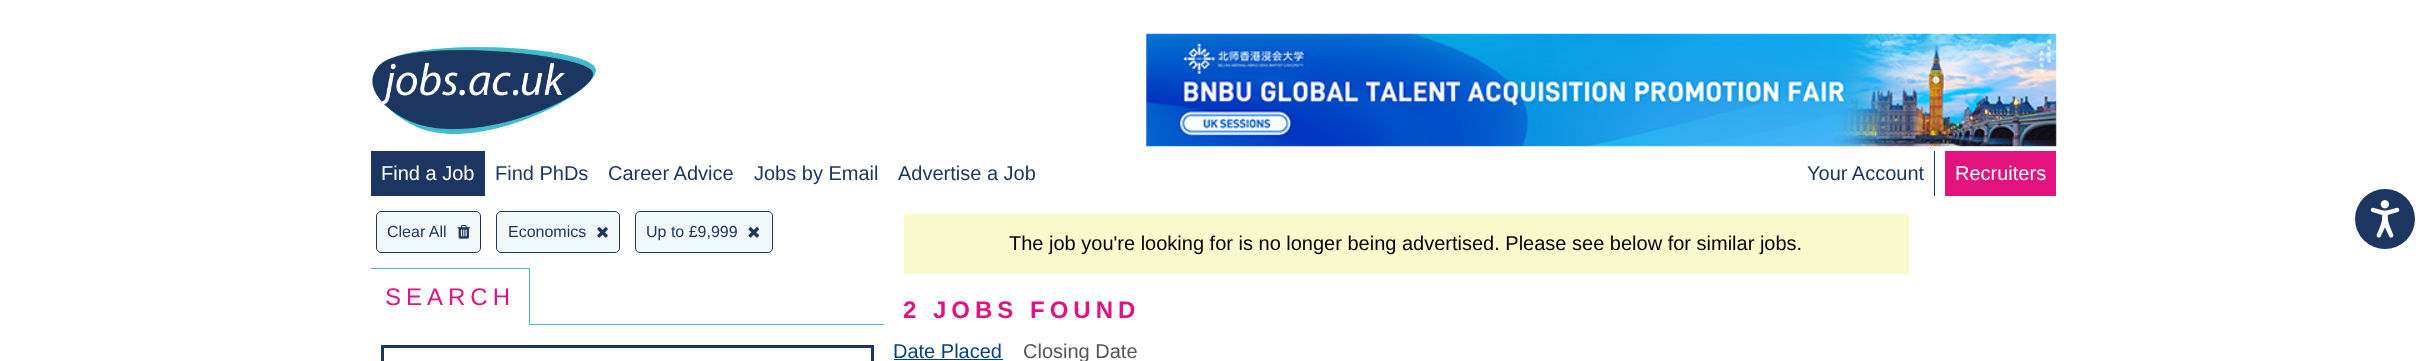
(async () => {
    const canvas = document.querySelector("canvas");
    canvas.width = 2427;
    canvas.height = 361;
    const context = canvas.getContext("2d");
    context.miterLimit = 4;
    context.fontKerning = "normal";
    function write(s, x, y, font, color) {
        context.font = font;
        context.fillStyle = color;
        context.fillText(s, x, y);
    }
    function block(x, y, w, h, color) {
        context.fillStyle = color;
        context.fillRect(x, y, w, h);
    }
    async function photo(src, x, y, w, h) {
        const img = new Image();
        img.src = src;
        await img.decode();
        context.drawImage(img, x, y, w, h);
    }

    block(0, 0, 2427, 361, "rgb(255, 255, 255)");
    await photo("media/1.png", 372, 46, 225, 88);
    await photo("media/2.png", 1146, 33, 911, 114);
    block(371, 151, 114, 45, "rgb(29, 54, 97)");
    write("Find a Job", 381, 180, "20px Liberation Sans", "rgb(255, 255, 255)");
    write("Find PhDs", 495, 180, "20px Liberation Sans", "rgb(29, 54, 97)");
    write("Career Advice", 608, 180, "20px Liberation Sans", "rgb(29, 54, 97)");
    write("Jobs by Email", 754, 180, "20px Liberation Sans", "rgb(29, 54, 97)");
    write("Advertise a Job", 898, 180, "20px Liberation Sans", "rgb(29, 54, 97)");
    block(1934, 151, 1, 45, "rgb(29, 54, 97)");
    write("Your Account", 1807, 180, "20px Liberation Sans", "rgb(29, 54, 97)");
    block(1945, 151, 111, 45, "rgb(227, 19, 126)");
    write("Recruiters", 1955, 180, "20px Liberation Sans", "rgb(255, 255, 255)");
    context.fillStyle = "rgb(241, 248, 251)";
    context.beginPath();
    context.roundRect(376.5, 211.5, 104, 41, 4.5);
    context.fill();
    context.strokeStyle = "rgb(29, 54, 97)";
    context.stroke();
    write("Clear All", 387, 237, "16px Liberation Sans", "rgb(29, 54, 97)");
    await photo("media/3.png", 457, 224, 14, 15);
    context.fillStyle = "rgb(241, 248, 251)";
    context.beginPath();
    context.roundRect(496.5, 211.5, 123, 41, 4.5);
    context.fill();
    context.stroke();
    write("Economics", 508, 237, "16px Liberation Sans", "rgb(29, 54, 97)");
    await photo("media/4.png", 597, 227, 11, 11);
    context.fillStyle = "rgb(241, 248, 251)";
    context.beginPath();
    context.roundRect(635.5, 211.5, 137, 41, 4.5);
    context.fill();
    context.stroke();
    write("Up to £9,999", 646, 237, "16px Liberation Sans", "rgb(29, 54, 97)");
    await photo("media/5.png", 748, 227, 11, 11);
    block(530, 324, 354, 1, "rgb(71, 188, 202)");
    block(371, 268, 159, 1, "rgb(71, 188, 202)");
    block(529, 268, 1, 57, "rgb(71, 188, 202)");
    context.letterSpacing = "5px";
    write("SEARCH", 385, 305, "24px Liberation Sans", "rgb(227, 19, 126)");
    context.lineWidth = 3;
    context.strokeRect(382.5, 346.5, 490, 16);
    block(904, 214, 1005, 60, "rgb(249, 249, 204)");
    context.letterSpacing = "0px";
    write("The job you're looking for is no longer being advertised. Please see below for similar jobs.", 1009, 250, "20px Liberation Sans", "rgb(0, 0, 0)");
    context.letterSpacing = "5px";
    write("2 JOBS FOUND", 903, 318, "bold 24px Liberation Sans", "rgb(227, 19, 126)");
    context.letterSpacing = "0px";
    write("Date Placed", 893, 358, "20px Liberation Sans", "rgb(0, 65, 132)");
    block(894, 359, 109, 1, "rgb(0, 65, 132)");
    write("Closing Date", 1023, 358, "20px Liberation Sans", "rgb(85, 85, 85)");
    context.fillStyle = "rgb(29, 54, 97)";
    context.beginPath();
    context.arc(2385, 219, 30, 0, Math.PI * 2);
    context.fill();
    await photo("media/6.png", 2370, 200, 30, 38);
})();
